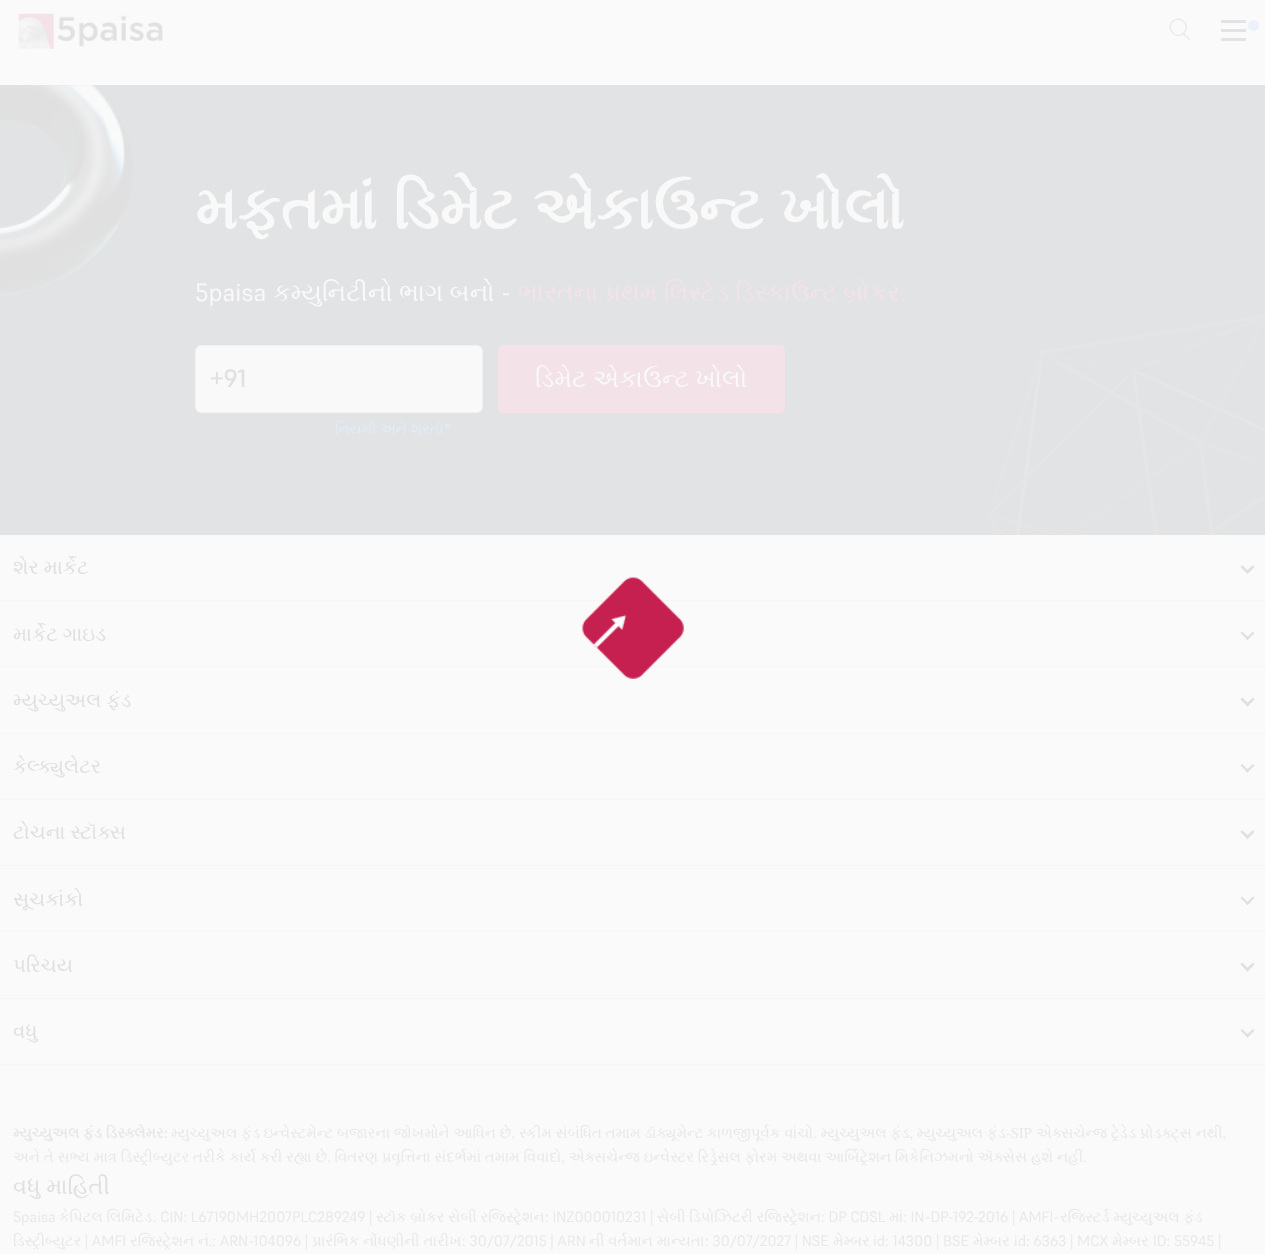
(async () => {
    const canvas = document.querySelector("canvas");
    canvas.width = 1265;
    canvas.height = 1254;
    const context = canvas.getContext("2d");
    context.miterLimit = 4;
    context.fontKerning = "normal";
    function write(s, x, y, font, color) {
        context.font = font;
        context.fillStyle = color;
        context.fillText(s, x, y);
    }
    function block(x, y, w, h, color) {
        context.fillStyle = color;
        context.fillRect(x, y, w, h);
    }
    function card(x, y, w, h, r, color) {
        context.fillStyle = color;
        context.beginPath();
        context.roundRect(x, y, w, h, r);
        context.fill();
    }
    async function photo(src, x, y, w, h) {
        const img = new Image();
        img.src = src;
        await img.decode();
        context.drawImage(img, x, y, w, h);
    }

    block(0, 0, 1265, 1254, "rgb(250, 250, 250)");
    await photo("media/1.png", 18, 13, 145, 36);
    context.fillStyle = "rgb(231, 233, 234)";
    context.beginPath();
    context.moveTo(1183, 33);
    context.bezierCurveTo(1184, 32.5, 1186.5, 36, 1187, 36.5);
    context.bezierCurveTo(1187.5, 37, 1191, 39.5, 1190, 40.5);
    context.bezierCurveTo(1189.5, 41, 1186.5, 37.5, 1186, 37);
    context.bezierCurveTo(1185.5, 36.5, 1182, 34, 1183, 33);
    context.closePath();
    context.fill();
    context.beginPath();
    context.moveTo(1172.5, 21.5);
    context.bezierCurveTo(1180, 14, 1191.5, 25.5, 1184, 33);
    context.bezierCurveTo(1176.5, 40.5, 1165, 29, 1172.5, 21.5);
    context.closePath();
    context.strokeStyle = "rgb(231, 233, 234)";
    context.lineWidth = 1.3;
    context.stroke();
    block(1221, 20, 25, 3, "rgb(225, 227, 231)");
    context.fillStyle = "rgb(236, 242, 249)";
    context.beginPath();
    context.arc(1253.5, 25.5, 5.5, 0, Math.PI * 2);
    context.fill();
    block(1221, 29, 25, 3, "rgb(225, 227, 231)");
    block(1221, 38, 25, 3, "rgb(225, 227, 231)");
    block(0, 85, 1265, 450, "rgb(226, 227, 228)");
    await photo("media/2.png", 0, 85, 134, 212);
    context.wordSpacing = "1px";
    write("મફતમાં ડિમેટ એકાઉન્ટ ખોલો", 195, 229, "bold 60px FreeSerif", "rgb(249, 249, 249)");
    context.wordSpacing = "0px";
    write("5paisa", 195, 301, "25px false", "rgb(249, 249, 249)");
    write("કમ્યુનિટીનો ભાગ બનો", 273, 301, "25px FreeSerif", "rgb(249, 249, 249)");
    write("-", 501, 301, "25px false", "rgb(249, 249, 249)");
    write("ભારતના પ્રથમ લિસ્ટેડ ડિસ્કાઉન્ટ બ્રોકર.", 518, 301, "25px FreeSerif", "rgb(243, 226, 231)");
    context.fillStyle = "rgb(249, 249, 249)";
    context.beginPath();
    context.roundRect(195.5, 345.5, 287, 67, 5.5);
    context.fill();
    context.strokeStyle = "rgb(241, 241, 243)";
    context.lineWidth = 1;
    context.stroke();
    write("+91", 210, 387, "500 25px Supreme", "rgb(224, 224, 224)");
    card(498, 345, 287, 68, 5, "rgb(243, 226, 231)");
    write("ડિમેટ એકાઉન્ટ ખોલો", 535, 387, "25px FreeSerif", "rgb(249, 249, 249)");
    write("નિયમો અને શરતો", 335, 434, "15px FreeSerif", "rgb(224, 236, 250)");
    write("*", 444, 434, "500 15px Supreme", "rgb(224, 236, 250)");
    await photo("media/3.png", 987, 314, 278, 222);
    block(0, 600, 1265, 1, "rgb(248, 245, 246)");
    block(0, 666, 1265, 1, "rgb(248, 245, 246)");
    await photo("media/4.png", 582, 577, 102, 102);
    write("શેર માર્કેટ", 13, 574, "20px FreeSerif", "rgb(224, 224, 224)");
    context.beginPath();
    context.moveTo(1254.5, 567);
    context.lineTo(1247.5, 574);
    context.lineTo(1245.5, 572);
    context.lineTo(1253, 565);
    context.closePath();
    context.fill();
    context.beginPath();
    context.moveTo(1249.5, 572);
    context.lineTo(1247.5, 574);
    context.lineTo(1240.5, 567);
    context.lineTo(1242, 565);
    context.closePath();
    context.fill();
    write("માર્કેટ ગાઇડ", 13, 641, "20px FreeSerif", "rgb(224, 224, 224)");
    context.beginPath();
    context.moveTo(1254.5, 633);
    context.lineTo(1247.5, 640);
    context.lineTo(1245.5, 638.5);
    context.lineTo(1253, 631.5);
    context.closePath();
    context.fill();
    context.beginPath();
    context.moveTo(1249.5, 638.5);
    context.lineTo(1247.5, 640);
    context.lineTo(1240.5, 633);
    context.lineTo(1242, 631.5);
    context.closePath();
    context.fill();
    block(0, 733, 1265, 1, "rgb(248, 245, 246)");
    write("મ્યુચ્યુઅલ ફંડ", 13, 707, "20px FreeSerif", "rgb(224, 224, 224)");
    context.beginPath();
    context.moveTo(1254.5, 699.5);
    context.lineTo(1247.5, 706.5);
    context.lineTo(1245.5, 704.5);
    context.lineTo(1253, 697.5);
    context.closePath();
    context.fill();
    context.beginPath();
    context.moveTo(1249.5, 704.5);
    context.lineTo(1247.5, 706.5);
    context.lineTo(1240.5, 699.5);
    context.lineTo(1242, 697.5);
    context.closePath();
    context.fill();
    block(0, 799, 1265, 1, "rgb(248, 245, 246)");
    write("કેલ્ક્યુલેટર", 13, 773, "20px FreeSerif", "rgb(224, 224, 224)");
    context.beginPath();
    context.moveTo(1254.5, 765.5);
    context.lineTo(1247.5, 772.5);
    context.lineTo(1245.5, 771);
    context.lineTo(1253, 764);
    context.closePath();
    context.fill();
    context.beginPath();
    context.moveTo(1249.5, 771);
    context.lineTo(1247.5, 772.5);
    context.lineTo(1240.5, 765.5);
    context.lineTo(1242, 764);
    context.closePath();
    context.fill();
    block(0, 865, 1265, 1, "rgb(248, 245, 246)");
    write("ટોચના સ્ટૉક્સ", 13, 839, "20px FreeSerif", "rgb(224, 224, 224)");
    context.beginPath();
    context.moveTo(1254.5, 832);
    context.lineTo(1247.5, 839);
    context.lineTo(1245.5, 837);
    context.lineTo(1253, 830);
    context.closePath();
    context.fill();
    context.beginPath();
    context.moveTo(1249.5, 837);
    context.lineTo(1247.5, 839);
    context.lineTo(1240.5, 832);
    context.lineTo(1242, 830);
    context.closePath();
    context.fill();
    block(0, 931, 1265, 1, "rgb(248, 245, 246)");
    write("સૂચકાંકો", 13, 906, "20px FreeSerif", "rgb(224, 224, 224)");
    context.beginPath();
    context.moveTo(1254.5, 898);
    context.lineTo(1247.5, 905);
    context.lineTo(1245.5, 903.5);
    context.lineTo(1253, 896.5);
    context.closePath();
    context.fill();
    context.beginPath();
    context.moveTo(1249.5, 903.5);
    context.lineTo(1247.5, 905);
    context.lineTo(1240.5, 898);
    context.lineTo(1242, 896.5);
    context.closePath();
    context.fill();
    block(0, 998, 1265, 1, "rgb(248, 245, 246)");
    write("પરિચય", 13, 972, "20px FreeSerif", "rgb(224, 224, 224)");
    context.beginPath();
    context.moveTo(1254.5, 964.5);
    context.lineTo(1247.5, 971.5);
    context.lineTo(1245.5, 969.5);
    context.lineTo(1253, 962.5);
    context.closePath();
    context.fill();
    context.beginPath();
    context.moveTo(1249.5, 969.5);
    context.lineTo(1247.5, 971.5);
    context.lineTo(1240.5, 964.5);
    context.lineTo(1242, 962.5);
    context.closePath();
    context.fill();
    block(0, 1064, 1265, 1, "rgb(248, 245, 246)");
    write("વધુ", 13, 1038, "20px FreeSerif", "rgb(224, 224, 224)");
    context.beginPath();
    context.moveTo(1254.5, 1030.5);
    context.lineTo(1247.5, 1037.5);
    context.lineTo(1245.5, 1036);
    context.lineTo(1253, 1029);
    context.closePath();
    context.fill();
    context.beginPath();
    context.moveTo(1249.5, 1036);
    context.lineTo(1247.5, 1037.5);
    context.lineTo(1240.5, 1030.5);
    context.lineTo(1242, 1029);
    context.closePath();
    context.fill();
    write("મ્યુચ્યુઅલ ફંડ ડિસ્ક્લેમર:", 13, 1138, "bold 15px FreeSerif", "rgb(232, 232, 232)");
    write("મ્યુચ્યુઅલ ફંડ ઇન્વેસ્ટમેન્ટ બજારના જોખમોને આધિન છે, સ્કીમ સંબંધિત તમામ ડૉક્યૂમેન્ટ કાળજીપૂર્વક વાંચો. મ્યુચ્યુઅલ ફંડ, મ્યુચ્યુઅલ ફંડ-SIP એક્સચેન્જ ટ્રેડેડ પ્રોડક્ટ્સ નથી,", 171, 1138, "15px FreeSerif", "rgb(232, 232, 232)");
    write("અને તે સભ્ય માત્ર ડિસ્ટ્રીબ્યુટર તરીકે કાર્ય કરી રહ્યા છે. વિતરણ પ્રવૃત્તિના સંદર્ભમાં તમામ વિવાદો, એક્સચેન્જ ઇન્વેસ્ટર રિડ્રેસલ ફોરમ અથવા આર્બિટ્રેશન મિકેનિઝમનો ઍક્સેસ હશે નહીં.", 13, 1162, "15px FreeSerif", "rgb(232, 232, 232)");
    write("વધુ માહિતી", 13, 1194, "22.5px FreeSerif", "rgb(224, 224, 224)");
    write("5paisa", 13, 1222, "15px false", "rgb(232, 232, 232)");
    write("કેપિટલ લિમિટેડ", 59, 1222, "15px FreeSerif", "rgb(232, 232, 232)");
    write(". CIN: L67190MH2007PLC289249 |", 153, 1222, "15px false", "rgb(232, 232, 232)");
    write("સ્ટૉક બ્રોકર સેબી રજિસ્ટ્રેશન", 376, 1222, "15px FreeSerif", "rgb(232, 232, 232)");
    write(": INZ000010231 |", 545, 1222, "15px false", "rgb(232, 232, 232)");
    write("સેબી ડિપોઝિટરી રજિસ્ટ્રેશન", 657, 1222, "15px FreeSerif", "rgb(232, 232, 232)");
    write(": DP CDSL", 821, 1222, "15px false", "rgb(232, 232, 232)");
    write("માં", 889, 1222, "15px FreeSerif", "rgb(232, 232, 232)");
    write(": IN-DP-192-2016 | AMFI-", 903, 1222, "15px false", "rgb(232, 232, 232)");
    write("રજિસ્ટર્ડ મ્યુચ્યુઅલ ફંડ", 1060, 1222, "15px FreeSerif", "rgb(232, 232, 232)");
    write("ડિસ્ટ્રીબ્યુટર", 13, 1246, "15px FreeSerif", "rgb(232, 232, 232)");
    write("| AMFI", 85, 1246, "15px false", "rgb(232, 232, 232)");
    write("રજિસ્ટ્રેશન નં", 130, 1246, "15px FreeSerif", "rgb(232, 232, 232)");
    write(".: ARN-104096 |", 209, 1246, "15px false", "rgb(232, 232, 232)");
    write("પ્રારંભિક નોંધણીની તારીખ", 312, 1246, "15px FreeSerif", "rgb(232, 232, 232)");
    write(": 30/07/2015 | ARN", 462, 1246, "15px false", "rgb(232, 232, 232)");
    write("ની વર્તમાન માન્યતા", 589, 1246, "15px FreeSerif", "rgb(232, 232, 232)");
    write(": 30/07/2027 | NSE", 705, 1246, "15px false", "rgb(232, 232, 232)");
    write("મેમ્બર", 833, 1246, "15px FreeSerif", "rgb(232, 232, 232)");
    write("id: 14300 | BSE", 873, 1246, "15px false", "rgb(232, 232, 232)");
    write("મેમ્બર", 973, 1246, "15px FreeSerif", "rgb(232, 232, 232)");
    write("id: 6363 | MCX", 1014, 1246, "15px false", "rgb(232, 232, 232)");
    write("મેમ્બર", 1112, 1246, "15px FreeSerif", "rgb(232, 232, 232)");
    write("ID: 55945 |", 1153, 1246, "15px false", "rgb(232, 232, 232)");
})();
